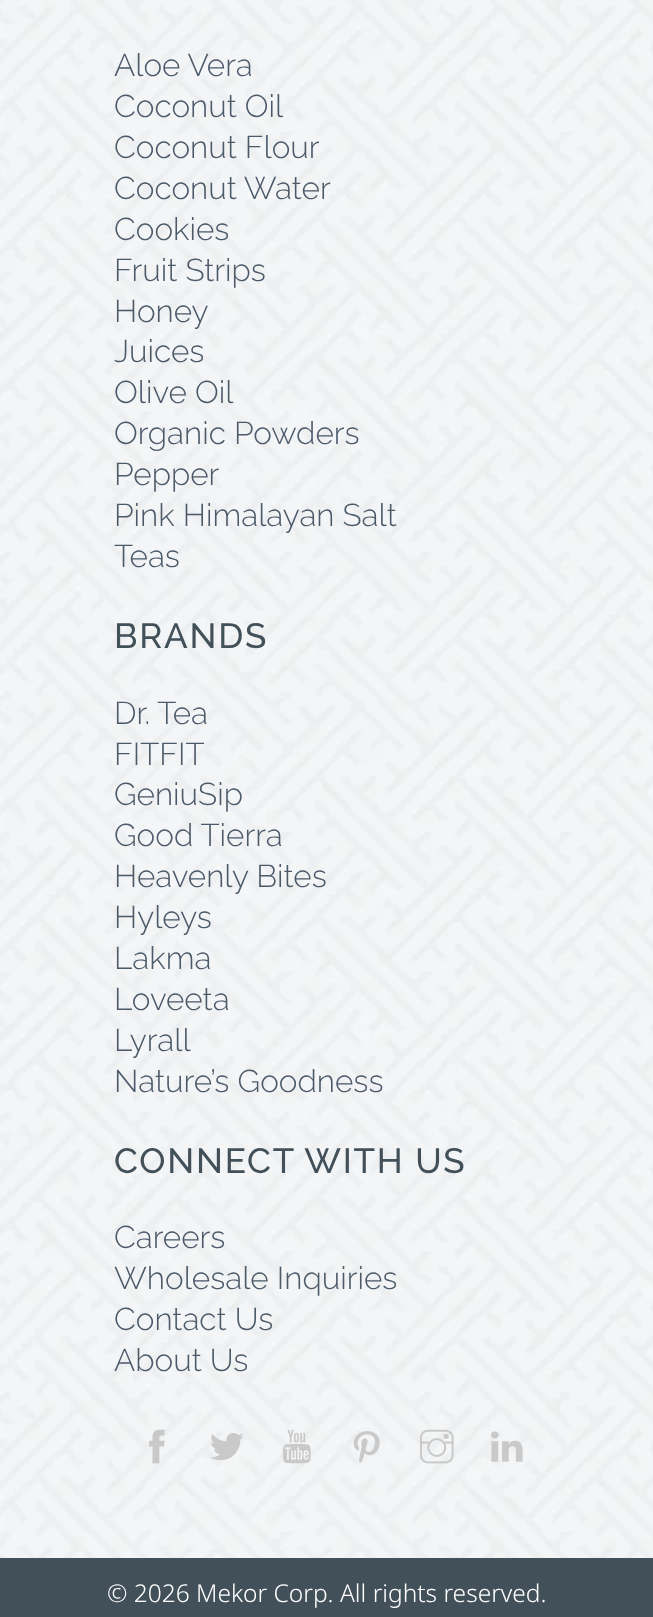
(async () => {
    const canvas = document.querySelector("canvas");
    canvas.width = 653;
    canvas.height = 1617;
    const context = canvas.getContext("2d");
    context.miterLimit = 4;
    context.fontKerning = "normal";
    function write(s, x, y, font, color) {
        context.font = font;
        context.fillStyle = color;
        context.fillText(s, x, y);
    }
    function block(x, y, w, h, color) {
        context.fillStyle = color;
        context.fillRect(x, y, w, h);
    }
    async function photo(src, x, y, w, h) {
        const img = new Image();
        img.src = src;
        await img.decode();
        context.drawImage(img, x, y, w, h);
    }

    block(0, 0, 653, 1617, "rgb(255, 255, 255)");
    await photo("media/1.png", 0, 0, 653, 1558);
    write("Aloe Vera", 114, 76, "300 31.5px Raleway", "rgb(75, 89, 105)");
    write("Coconut Oil", 114, 117, "300 31.5px Raleway", "rgb(75, 89, 105)");
    write("Coconut Flour", 114, 158, "300 31.5px Raleway", "rgb(75, 89, 105)");
    write("Coconut Water", 114, 199, "300 31.5px Raleway", "rgb(75, 89, 105)");
    write("Cookies", 114, 240, "300 31.5px Raleway", "rgb(75, 89, 105)");
    write("Fruit Strips", 114, 281, "300 31.5px Raleway", "rgb(75, 89, 105)");
    write("Honey", 114, 322, "300 31.5px Raleway", "rgb(75, 89, 105)");
    write("Juices", 114, 362, "300 31.5px Raleway", "rgb(75, 89, 105)");
    write("Olive Oil", 114, 403, "300 31.5px Raleway", "rgb(75, 89, 105)");
    write("Organic Powders", 114, 444, "300 31.5px Raleway", "rgb(75, 89, 105)");
    write("Pepper", 114, 485, "300 31.5px Raleway", "rgb(75, 89, 105)");
    write("Pink Himalayan Salt", 114, 526, "300 31.5px Raleway", "rgb(75, 89, 105)");
    write("Teas", 114, 567, "300 31.5px Raleway", "rgb(75, 89, 105)");
    context.letterSpacing = "1.75px";
    write("BRANDS", 114, 648, "500 35px Raleway", "rgb(66, 80, 89)");
    context.letterSpacing = "0px";
    write("Dr. Tea", 114, 724, "300 31.5px Raleway", "rgb(75, 89, 105)");
    write("FITFIT", 114, 765, "300 31.5px Raleway", "rgb(75, 89, 105)");
    write("GeniuSip", 114, 805, "300 31.5px Raleway", "rgb(75, 89, 105)");
    write("Good Tierra", 114, 846, "300 31.5px Raleway", "rgb(75, 89, 105)");
    write("Heavenly Bites", 114, 887, "300 31.5px Raleway", "rgb(75, 89, 105)");
    write("Hyleys", 114, 928, "300 31.5px Raleway", "rgb(75, 89, 105)");
    write("Lakma", 114, 969, "300 31.5px Raleway", "rgb(75, 89, 105)");
    write("Loveeta", 114, 1010, "300 31.5px Raleway", "rgb(75, 89, 105)");
    write("Lyrall", 114, 1051, "300 31.5px Raleway", "rgb(75, 89, 105)");
    write("Nature’s Goodness", 114, 1092, "300 31.5px Raleway", "rgb(75, 89, 105)");
    context.letterSpacing = "1.75px";
    write("CONNECT WITH US", 114, 1173, "500 35px Raleway", "rgb(66, 80, 89)");
    context.letterSpacing = "0px";
    write("Careers", 114, 1248, "300 31.5px Raleway", "rgb(75, 89, 105)");
    write("Wholesale Inquiries", 114, 1289, "300 31.5px Raleway", "rgb(75, 89, 105)");
    write("Contact Us", 114, 1330, "300 31.5px Raleway", "rgb(75, 89, 105)");
    write("About Us", 114, 1371, "300 31.5px Raleway", "rgb(75, 89, 105)");
    await photo("media/2.png", 149, 1429, 16, 35);
    await photo("media/3.png", 210, 1433, 34, 28);
    await photo("media/4.png", 282, 1429, 29, 35);
    await photo("media/5.png", 353, 1431, 27, 32);
    await photo("media/6.png", 420, 1429, 34, 35);
    await photo("media/7.png", 491, 1431, 32, 31);
    block(0, 1558, 653, 59, "rgb(66, 80, 89)");
    write("© 2026 Mekor Corp. All rights reserved.", 107, 1602, "300 24.5px Noto Sans", "rgb(255, 255, 255)");
})();
